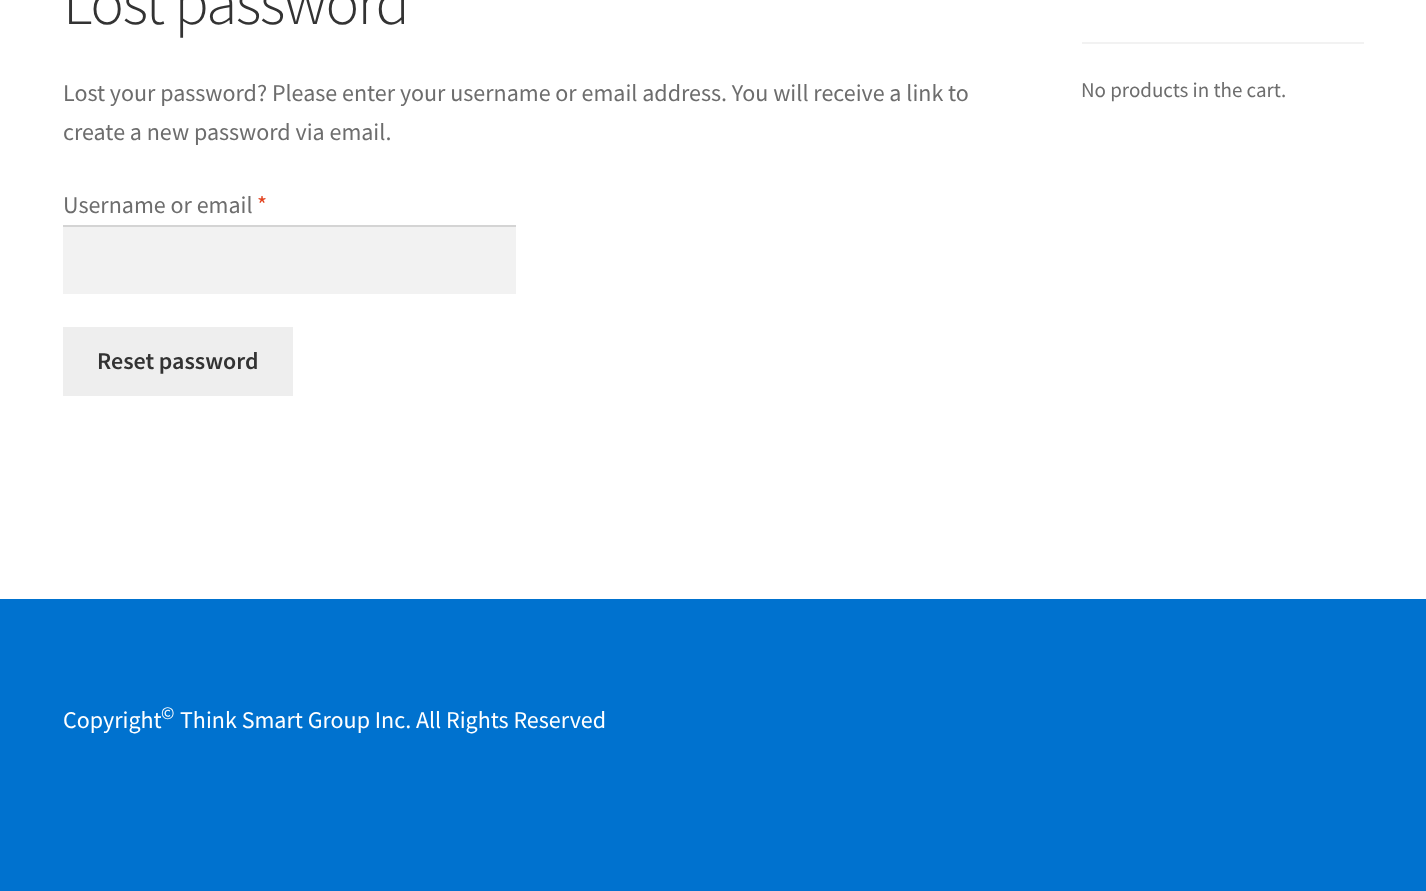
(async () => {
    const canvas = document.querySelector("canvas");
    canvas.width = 1426;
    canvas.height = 891;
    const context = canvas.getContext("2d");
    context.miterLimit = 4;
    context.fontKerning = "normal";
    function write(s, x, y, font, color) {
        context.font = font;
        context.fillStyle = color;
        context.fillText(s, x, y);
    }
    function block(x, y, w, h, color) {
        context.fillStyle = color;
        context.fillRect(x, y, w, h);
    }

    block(0, 0, 1426, 891, "rgb(255, 255, 255)");
    context.letterSpacing = "-1.5px";
    write("Lost password", 63, 24, "300 63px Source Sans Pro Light", "rgb(51, 51, 51)");
    context.letterSpacing = "0px";
    write("Lost your password? Please enter your username or email address. You will receive a link to", 63, 101, "24px Source Sans Pro", "rgb(109, 109, 109)");
    write("create a new password via email.", 63, 140, "24px Source Sans Pro", "rgb(109, 109, 109)");
    write("Username or email", 63, 213, "24px Source Sans Pro", "rgb(109, 109, 109)");
    write("*", 257, 213, "24px Source Sans Pro", "rgb(226, 64, 28)");
    block(63, 227, 453, 67, "rgb(242, 242, 242)");
    block(63, 225, 453, 2, "rgb(212, 212, 212)");
    block(63, 327, 230, 69, "rgb(238, 238, 238)");
    write("Reset password", 97, 369, "600 24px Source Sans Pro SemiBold", "rgb(51, 51, 51)");
    block(1082, 42, 282, 2, "rgb(242, 242, 242)");
    write("No products in the cart.", 1081, 97, "21px Source Sans Pro", "rgb(109, 109, 109)");
    block(0, 599, 1426, 292, "rgb(0, 114, 207)");
    write("Copyright", 63, 728, "24px Source Sans Pro", "rgb(255, 255, 255)");
    write("©", 161, 719, "18px Source Sans Pro", "rgb(255, 255, 255)");
    write("Think Smart Group Inc. All Rights Reserved", 180, 728, "24px Source Sans Pro", "rgb(255, 255, 255)");
})();
